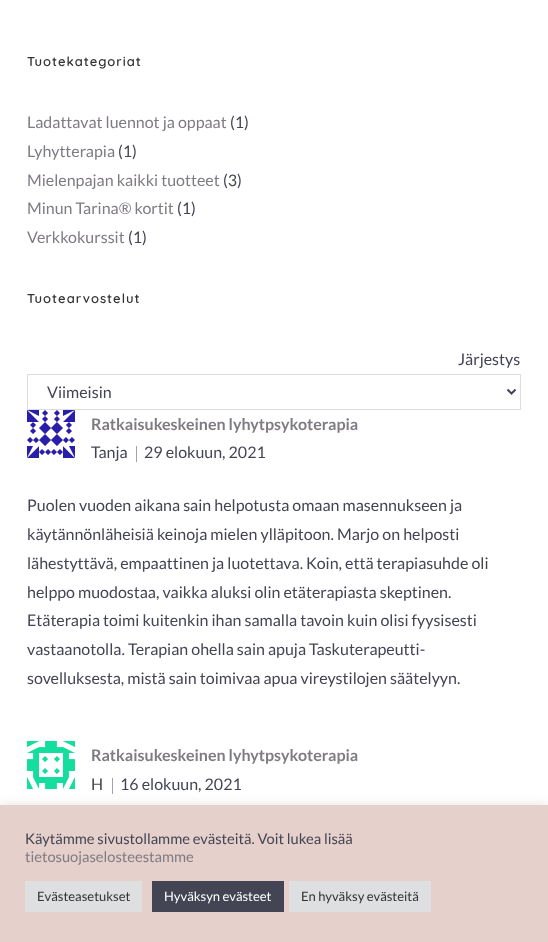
(async () => {
    const canvas = document.querySelector("canvas");
    canvas.width = 548;
    canvas.height = 942;
    const context = canvas.getContext("2d");
    context.miterLimit = 4;
    context.fontKerning = "normal";
    function write(s, x, y, font, color) {
        context.font = font;
        context.fillStyle = color;
        context.fillText(s, x, y);
    }
    function block(x, y, w, h, color) {
        context.fillStyle = color;
        context.fillRect(x, y, w, h);
    }
    async function photo(src, x, y, w, h) {
        const img = new Image();
        img.src = src;
        await img.decode();
        context.drawImage(img, x, y, w, h);
    }

    block(0, 0, 548, 942, "rgb(255, 255, 255)");
    context.letterSpacing = "1px";
    write("Tuotekategoriat", 27, 66, "600 13px Quicksand", "rgb(51, 51, 51)");
    context.letterSpacing = "0px";
    write("Ladattavat luennot ja oppaat", 27, 128, "16px Lato", "rgb(127, 123, 130)");
    write("(1)", 230, 128, "16px Lato", "rgb(68, 69, 84)");
    write("Lyhytterapia", 27, 157, "16px Lato", "rgb(127, 123, 130)");
    write("(1)", 118, 157, "16px Lato", "rgb(68, 69, 84)");
    write("Mielenpajan kaikki tuotteet", 27, 186, "16px Lato", "rgb(127, 123, 130)");
    write("(3)", 223, 186, "16px Lato", "rgb(68, 69, 84)");
    write("Minun Tarina® kortit", 27, 214, "16px Lato", "rgb(127, 123, 130)");
    write("(1)", 177, 214, "16px Lato", "rgb(68, 69, 84)");
    write("Verkkokurssit", 27, 243, "16px Lato", "rgb(127, 123, 130)");
    write("(1)", 128, 243, "16px Lato", "rgb(68, 69, 84)");
    context.letterSpacing = "1px";
    write("Tuotearvostelut", 27, 303, "600 13px Quicksand", "rgb(51, 51, 51)");
    context.letterSpacing = "0px";
    write("Järjestys", 458, 365, "16px Lato", "rgb(68, 69, 84)");
    context.strokeStyle = "rgb(221, 221, 221)";
    context.strokeRect(27.5, 374.5, 493, 35);
    context.beginPath();
    context.moveTo(507.5, 389.5);
    context.lineTo(511.5, 393.5);
    context.lineTo(515.5, 389.5);
    context.strokeStyle = "rgb(68, 69, 84)";
    context.lineWidth = 2;
    context.stroke();
    write("Viimeisin", 47, 398, "16px Lato", "rgb(68, 69, 84)");
    await photo("media/1.png", 27, 410, 48, 48);
    write("Ratkaisukeskeinen lyhytpsykoterapia", 91, 430, "bold 16px Lato", "rgb(127, 123, 130)");
    write("Tanja", 91, 458, "16px Lato", "rgb(68, 69, 84)");
    block(136, 446, 1, 16, "rgb(162, 162, 170)");
    write("29 elokuun, 2021", 144, 458, "16px Lato", "rgb(68, 69, 84)");
    write("Puolen vuoden aikana sain helpotusta omaan masennukseen ja", 27, 511, "16px Lato", "rgb(68, 69, 84)");
    write("käytännönläheisiä keinoja mielen ylläpitoon. Marjo on helposti", 27, 540, "16px Lato", "rgb(68, 69, 84)");
    write("lähestyttävä, empaattinen ja luotettava. Koin, että terapiasuhde oli", 27, 569, "16px Lato", "rgb(68, 69, 84)");
    write("helppo muodostaa, vaikka aluksi olin etäterapiasta skeptinen.", 27, 598, "16px Lato", "rgb(68, 69, 84)");
    write("Etäterapia toimi kuitenkin ihan samalla tavoin kuin olisi fyysisesti", 27, 626, "16px Lato", "rgb(68, 69, 84)");
    write("vastaanotolla. Terapian ohella sain apuja Taskuterapeutti-", 27, 655, "16px Lato", "rgb(68, 69, 84)");
    write("sovelluksesta, mistä sain toimivaa apua vireystilojen säätelyyn.", 27, 684, "16px Lato", "rgb(68, 69, 84)");
    await photo("media/2.png", 27, 741, 48, 48);
    write("Ratkaisukeskeinen lyhytpsykoterapia", 91, 761, "bold 16px Lato", "rgb(127, 123, 130)");
    write("H", 91, 790, "16px Lato", "rgb(68, 69, 84)");
    block(112, 778, 1, 16, "rgb(162, 162, 170)");
    write("16 elokuun, 2021", 120, 790, "16px Lato", "rgb(68, 69, 84)");
    context.fillStyle = "rgba(172, 171, 171, 0.3)";
    context.filter = "blur(5px)";
    context.beginPath();
    context.rect(0, 804, 548, 137);
    context.fill();
    context.filter = "none";
    block(0, 805, 548, 137, "rgb(229, 208, 204)");
    write("Käytämme sivustollamme evästeitä. Voit lukea lisää", 25, 844, "14.7px Lato", "rgb(68, 69, 84)");
    write("tietosuojaselosteestamme", 25, 862, "14.7px Lato", "rgb(127, 123, 130)");
    block(25, 881, 117, 31, "rgb(222, 223, 224)");
    write("Evästeasetukset", 37, 901, "13px Lato", "rgb(51, 51, 51)");
    block(152, 881, 132, 31, "rgb(68, 69, 84)");
    write("Hyväksyn evästeet", 164, 901, "13px Lato", "rgb(255, 255, 255)");
    block(289, 881, 142, 31, "rgb(222, 223, 224)");
    write("En hyväksy evästeitä", 301, 901, "13px Lato", "rgb(51, 51, 51)");
})();
